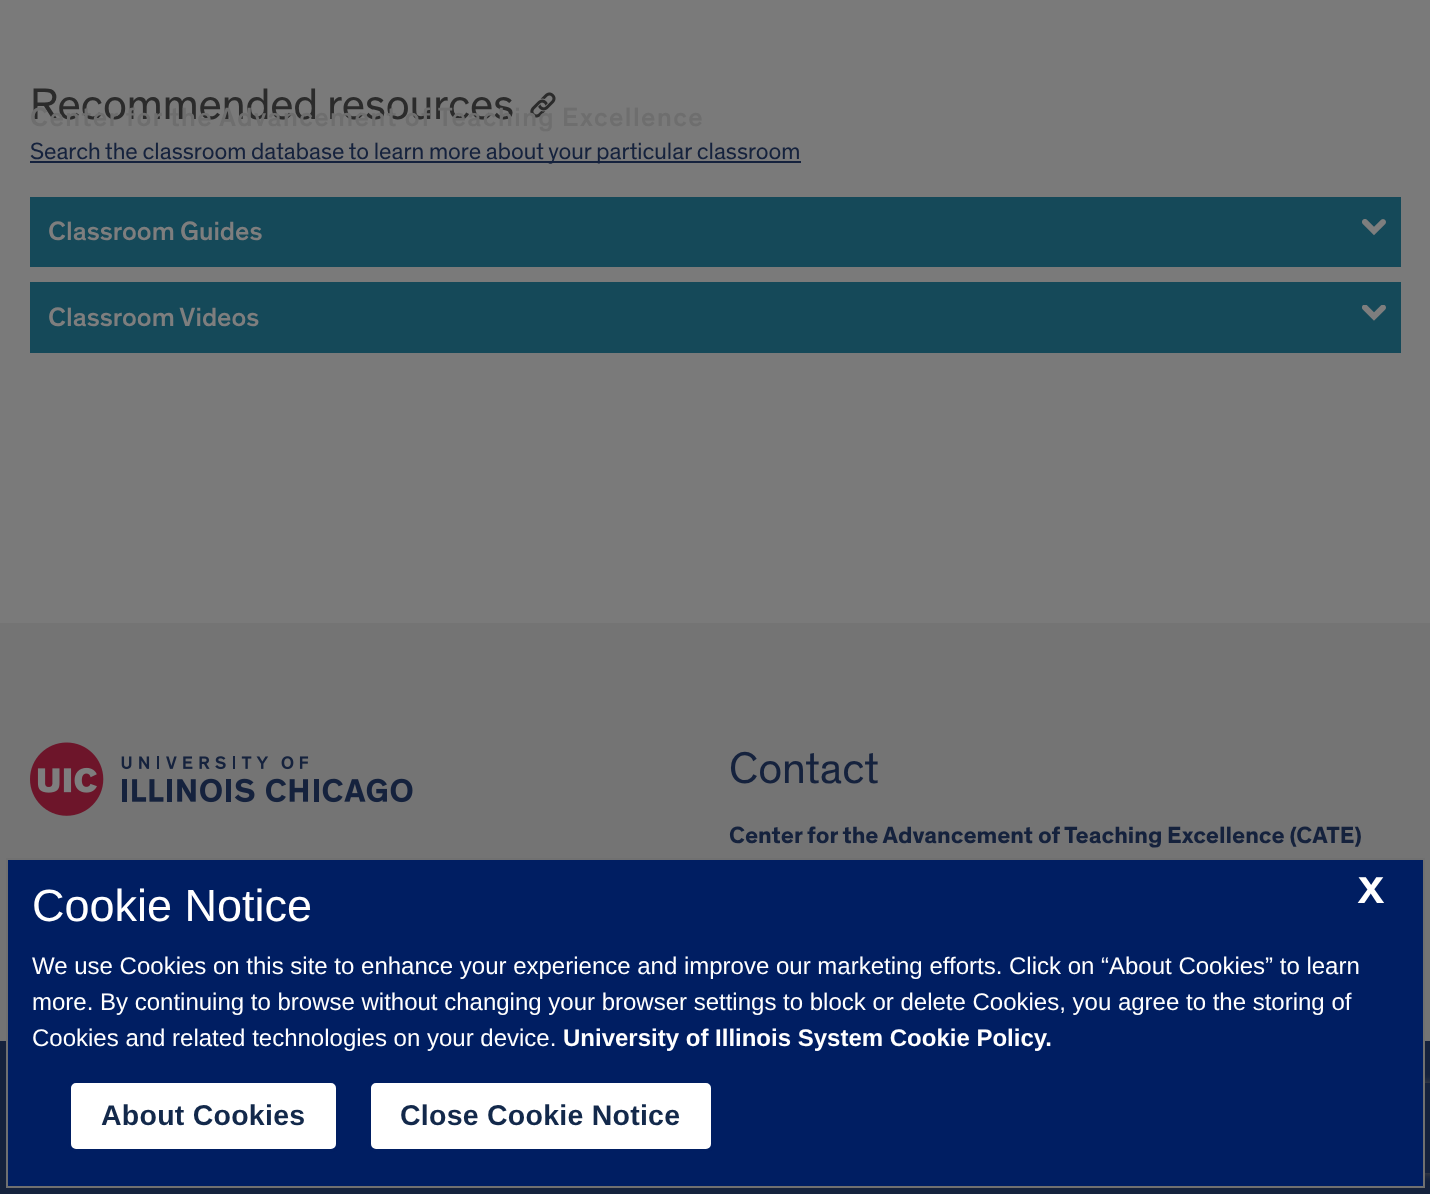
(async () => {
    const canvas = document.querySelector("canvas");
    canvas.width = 1430;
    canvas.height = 1194;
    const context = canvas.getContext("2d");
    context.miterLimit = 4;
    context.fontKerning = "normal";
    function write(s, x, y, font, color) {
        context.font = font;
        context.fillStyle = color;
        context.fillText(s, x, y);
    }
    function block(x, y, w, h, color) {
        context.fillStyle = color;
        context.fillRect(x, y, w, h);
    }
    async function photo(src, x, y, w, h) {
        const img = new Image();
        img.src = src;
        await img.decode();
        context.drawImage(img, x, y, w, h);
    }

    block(0, 0, 1430, 1194, "rgb(122, 122, 122)");
    write("Recommended resources", 30, 119, "45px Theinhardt", "rgb(43, 43, 43)");
    await photo("media/1.png", 530, 92, 26, 26);
    block(30, 161, 771, 2, "rgb(21, 34, 61)");
    write("Search the classroom database to learn more about your particular classroom", 30, 159, "24px Theinhardt", "rgb(21, 34, 61)");
    block(30, 197, 1371, 70, "rgb(21, 73, 89)");
    write("Classroom Guides", 48, 240, "500 27px Theinhardt", "rgb(126, 126, 126)");
    await photo("media/2.png", 1362, 219, 24, 17);
    block(30, 282, 1371, 71, "rgb(21, 73, 89)");
    write("Classroom Videos", 48, 326, "500 27px Theinhardt", "rgb(126, 126, 126)");
    await photo("media/3.png", 1362, 305, 24, 16);
    context.letterSpacing = "1.5px";
    write("Center for the Advancement of Teaching Excellence", 30, 126, "500 27px Theinhardt", "rgb(110, 110, 110)");
    block(0, 623, 1430, 418, "rgb(116, 116, 116)");
    await photo("media/4.png", 30, 742, 383, 74);
    context.letterSpacing = "0px";
    write("Contact", 729, 783, "45px Theinhardt", "rgb(21, 34, 61)");
    write("Center for the Advancement of Teaching Excellence (CATE)", 729, 843, "bold 24px Theinhardt", "rgb(21, 34, 61)");
    block(0, 1041, 1430, 153, "rgb(21, 34, 61)");
    context.save();
    context.beginPath();
    context.moveTo(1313, 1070);
    context.lineTo(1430, 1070);
    context.lineTo(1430, 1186);
    context.lineTo(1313, 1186);
    context.closePath();
    context.moveTo(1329, 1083);
    context.lineTo(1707, 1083);
    context.bezierCurveTo(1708.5, 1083, 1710, 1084.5, 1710, 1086);
    context.lineTo(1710, 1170);
    context.bezierCurveTo(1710, 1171.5, 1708.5, 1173, 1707, 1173);
    context.lineTo(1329, 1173);
    context.bezierCurveTo(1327.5, 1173, 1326, 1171.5, 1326, 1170);
    context.lineTo(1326, 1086);
    context.bezierCurveTo(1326, 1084.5, 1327.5, 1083, 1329, 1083);
    context.closePath();
    context.clip("evenodd");
    context.fillStyle = "rgb(74, 74, 74)";
    context.filter = "blur(4px)";
    context.beginPath();
    context.roundRect(1326, 1083, 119, 90, 3);
    context.fill();
    context.filter = "none";
    context.restore();
    context.fillStyle = "rgb(0, 30, 98)";
    context.beginPath();
    context.rect(7, 859, 1417, 328);
    context.fill();
    context.strokeStyle = "rgb(112, 112, 112)";
    context.lineWidth = 2;
    context.stroke();
    write("Cookie Notice", 32, 921, "45px Liberation Sans", "rgb(255, 255, 255)");
    write("X", 1358, 903, "bold 38px Theinhardt", "rgb(255, 255, 255)");
    write("We use Cookies on this site to enhance your experience and improve our marketing efforts. Click on “About Cookies” to learn", 32, 974, "24px Liberation Sans", "rgb(255, 255, 255)");
    write("more. By continuing to browse without changing your browser settings to block or delete Cookies, you agree to the storing of", 32, 1010, "24px Liberation Sans", "rgb(255, 255, 255)");
    write("Cookies and related technologies on your device.", 32, 1046, "24px Liberation Sans", "rgb(255, 255, 255)");
    write("University of Illinois System Cookie Policy.", 563, 1046, "bold 24px Liberation Sans", "rgb(255, 255, 255)");
    context.beginPath();
    context.roundRect(69.5, 1081.5, 268, 69, 6.5);
    context.fill();
    context.strokeStyle = "rgb(0, 30, 98)";
    context.lineWidth = 3;
    context.stroke();
    context.letterSpacing = "0.25px";
    write("About Cookies", 101, 1125, "bold 28.5px Liberation Sans", "rgb(19, 41, 75)");
    context.fillStyle = "rgb(255, 255, 255)";
    context.beginPath();
    context.roundRect(369.5, 1081.5, 343, 69, 6.5);
    context.fill();
    context.stroke();
    write("Close Cookie Notice", 400, 1125, "bold 28.5px Liberation Sans", "rgb(19, 41, 75)");
})();
